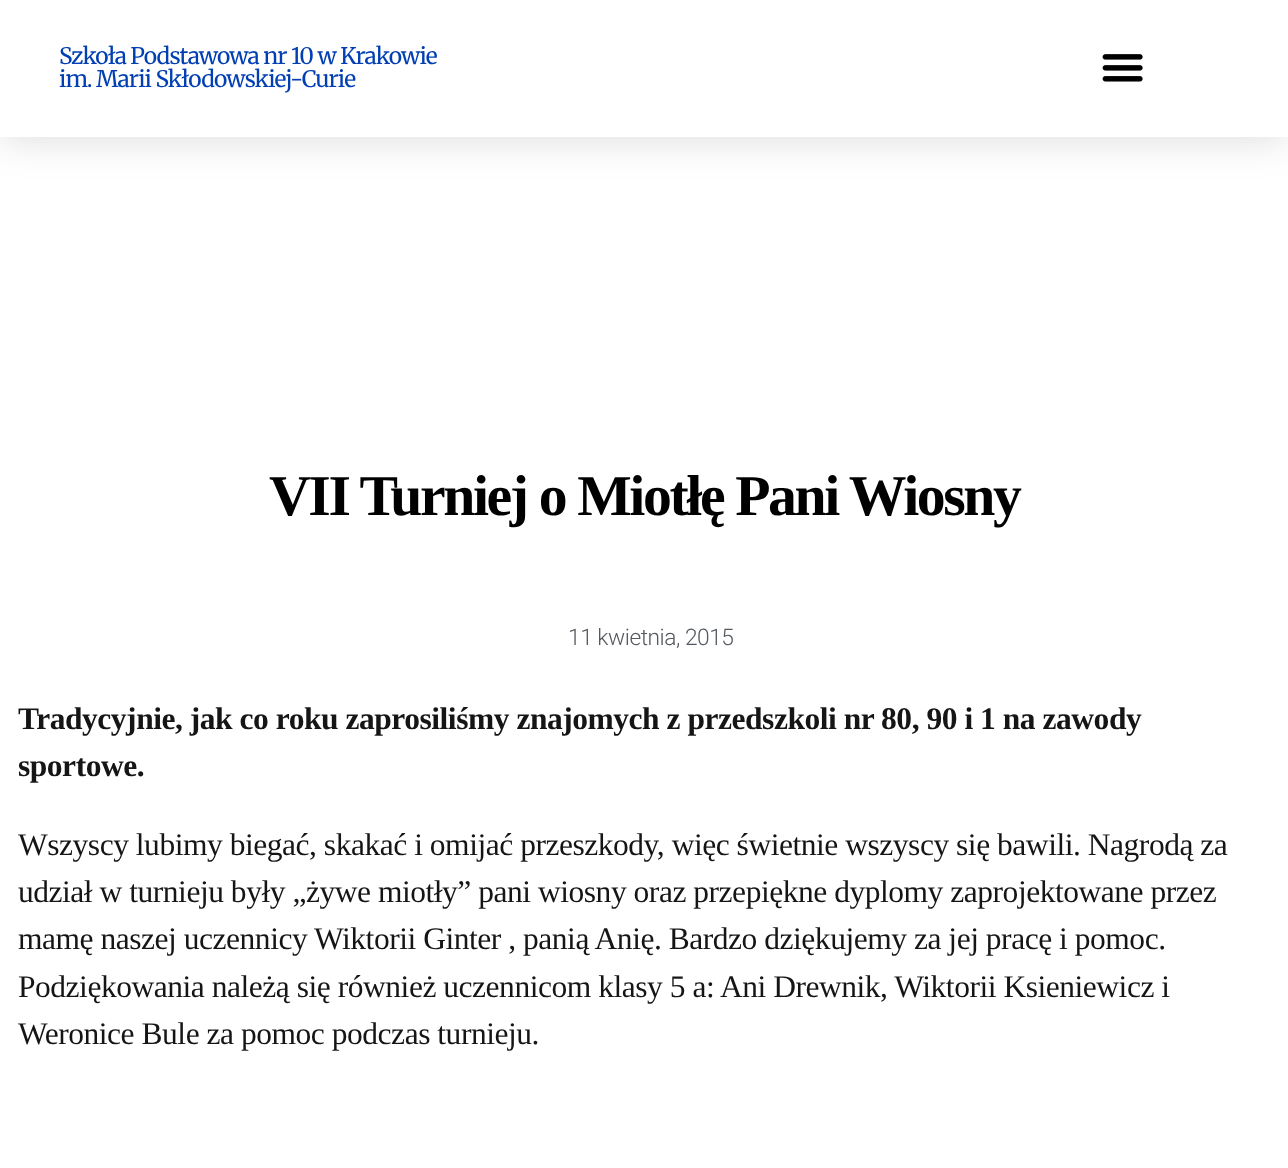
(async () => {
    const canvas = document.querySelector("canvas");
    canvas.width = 1288;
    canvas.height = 1168;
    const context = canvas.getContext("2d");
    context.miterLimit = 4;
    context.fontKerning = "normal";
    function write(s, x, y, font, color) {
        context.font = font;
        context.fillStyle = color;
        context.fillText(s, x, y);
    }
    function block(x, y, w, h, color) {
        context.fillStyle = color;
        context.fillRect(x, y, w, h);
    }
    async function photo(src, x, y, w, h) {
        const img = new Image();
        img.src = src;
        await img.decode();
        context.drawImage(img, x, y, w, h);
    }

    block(0, 0, 1288, 1168, "rgb(255, 255, 255)");
    context.fillStyle = "rgba(0, 0, 0, 0.15)";
    context.filter = "blur(21px)";
    context.beginPath();
    context.rect(0, 0, 1288, 137);
    context.fill();
    context.filter = "none";
    block(0, 0, 1288, 137, "rgb(255, 255, 255)");
    context.letterSpacing = "-0.95px";
    write("Szkoła Podstawowa nr 10 w Krakowie", 59, 64, "22.75px Merriweather", "rgb(2, 63, 179)");
    write("im. Marii Skłodowskiej-Curie", 59, 87, "22.75px Merriweather", "rgb(2, 63, 179)");
    await photo("media/1.png", 1102, 54, 41, 28);
    context.letterSpacing = "-2.4px";
    write("VII Turniej o Miotłę Pani Wiosny", 269, 515, "bold 57.75px Liberation Serif", "rgb(0, 0, 0)");
    context.letterSpacing = "-0.47px";
    write("11 kwietnia, 2015", 568, 645, "300 22.75px Roboto", "rgb(84, 89, 95)");
    write("Tradycyjnie, jak co roku zaprosiliśmy znajomych z przedszkoli nr 80, 90 i 1 na zawody", 18, 729, "bold 31.5px Liberation Serif", "rgb(21, 21, 21)");
    write("sportowe.", 18, 776, "bold 31.5px Liberation Serif", "rgb(21, 21, 21)");
    write("Wszyscy lubimy biegać, skakać i omijać przeszkody, więc świetnie wszyscy się bawili. Nagrodą za", 18, 855, "31.5px Liberation Serif", "rgb(21, 21, 21)");
    write("udział w turnieju były „żywe miotły” pani wiosny oraz przepiękne dyplomy zaprojektowane przez", 18, 902, "31.5px Liberation Serif", "rgb(21, 21, 21)");
    write("mamę naszej uczennicy Wiktorii Ginter , panią Anię. Bardzo dziękujemy za jej pracę i pomoc.", 18, 949, "31.5px Liberation Serif", "rgb(21, 21, 21)");
    write("Podziękowania należą się również uczennicom klasy 5 a: Ani Drewnik, Wiktorii Ksieniewicz i", 18, 997, "31.5px Liberation Serif", "rgb(21, 21, 21)");
    write("Weronice Bule za pomoc podczas turnieju.", 18, 1044, "31.5px Liberation Serif", "rgb(21, 21, 21)");
})();
